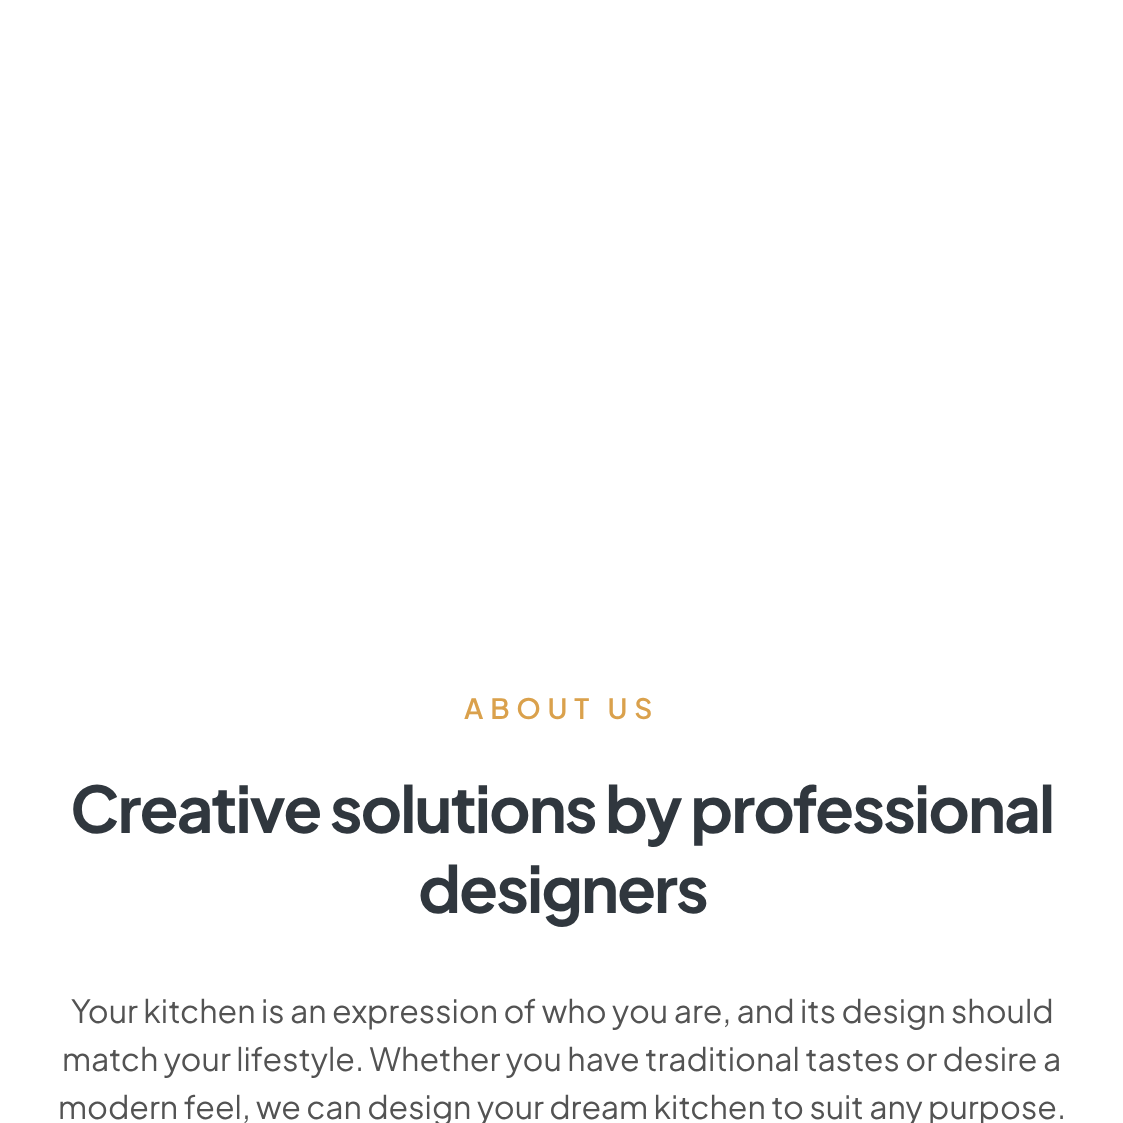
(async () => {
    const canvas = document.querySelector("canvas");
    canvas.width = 1123;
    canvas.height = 1123;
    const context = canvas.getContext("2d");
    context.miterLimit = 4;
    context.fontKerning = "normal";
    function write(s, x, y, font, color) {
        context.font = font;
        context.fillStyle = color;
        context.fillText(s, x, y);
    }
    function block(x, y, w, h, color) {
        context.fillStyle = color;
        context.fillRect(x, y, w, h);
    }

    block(0, 0, 1123, 1123, "rgb(255, 255, 255)");
    context.letterSpacing = "6.75px";
    write("ABOUT US", 464, 719, "600 28px Plus Jakarta Sans", "rgb(218, 161, 76)");
    context.letterSpacing = "-2px";
    write("Creative solutions by professional", 70, 833, "bold 64px Plus Jakarta Sans", "rgb(48, 55, 62)");
    write("designers", 418, 913, "bold 64px Plus Jakarta Sans", "rgb(48, 55, 62)");
    context.letterSpacing = "0px";
    write("Your kitchen is an expression of who you are, and its design should", 71, 1023, "32px Plus Jakarta Sans", "rgb(83, 83, 83)");
    write("match your lifestyle. Whether you have traditional tastes or desire a", 62, 1071, "32px Plus Jakarta Sans", "rgb(83, 83, 83)");
    write("modern feel, we can design your dream kitchen to suit any purpose.", 58, 1119, "32px Plus Jakarta Sans", "rgb(83, 83, 83)");
})();
